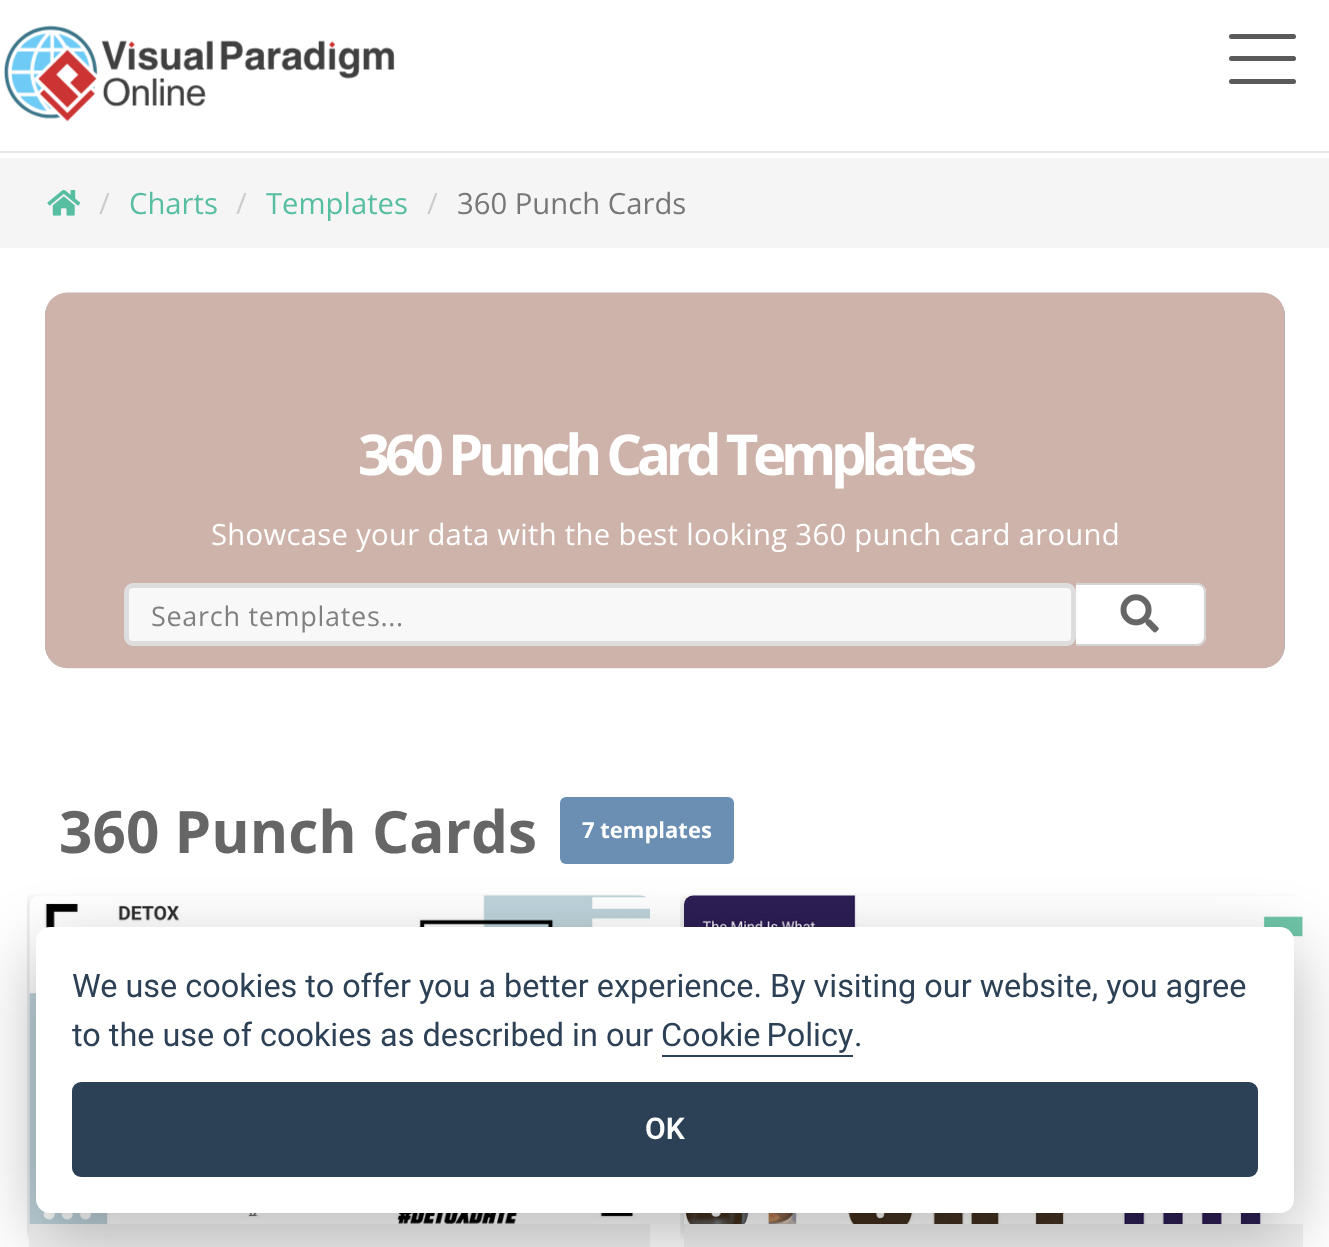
(async () => {
    const canvas = document.querySelector("canvas");
    canvas.width = 1329;
    canvas.height = 1247;
    const context = canvas.getContext("2d");
    context.miterLimit = 4;
    context.fontKerning = "normal";
    function write(s, x, y, font, color) {
        context.font = font;
        context.fillStyle = color;
        context.fillText(s, x, y);
    }
    function block(x, y, w, h, color) {
        context.fillStyle = color;
        context.fillRect(x, y, w, h);
    }
    function card(x, y, w, h, r, color) {
        context.fillStyle = color;
        context.beginPath();
        context.roundRect(x, y, w, h, r);
        context.fill();
    }
    async function photo(src, x, y, w, h) {
        const img = new Image();
        img.src = src;
        await img.decode();
        context.drawImage(img, x, y, w, h);
    }

    block(0, 0, 1329, 1247, "rgb(255, 255, 255)");
    block(0, 151, 1329, 2, "rgb(231, 231, 231)");
    await photo("media/1.png", 3, 25, 392, 97);
    card(1229, 34, 67, 5, 2.5, "rgb(90, 90, 90)");
    card(1229, 56, 67, 5, 2.5, "rgb(90, 90, 90)");
    card(1229, 79, 67, 5, 2.5, "rgb(90, 90, 90)");
    block(0, 158, 1329, 90, "rgb(245, 245, 245)");
    await photo("media/2.png", 47, 190, 34, 26);
    write("/", 99, 214, "29.25px Open Sans", "rgb(204, 204, 204)");
    write("Charts", 129, 214, "29.25px Open Sans", "rgb(87, 190, 162)");
    write("/", 236, 214, "29.25px Open Sans", "rgb(204, 204, 204)");
    write("Templates", 266, 214, "29.25px Open Sans", "rgb(87, 190, 162)");
    write("/", 427, 214, "29.25px Open Sans", "rgb(204, 204, 204)");
    write("360 Punch Cards", 457, 214, "29.25px Open Sans", "rgb(119, 119, 119)");
    card(45, 293, 1240, 375, 23, "rgb(117, 159, 188)");
    await photo("media/3.png", 45, 292, 1240, 377);
    context.letterSpacing = "-5.25px";
    write("360 Punch Card Templates", 358, 475, "bold 56.25px Open Sans", "rgb(255, 255, 255)");
    context.letterSpacing = "0.3px";
    write("Showcase your data with the best looking 360 punch card around", 211, 545, "29.25px Open Sans", "rgb(255, 255, 255)");
    context.fillStyle = "rgb(248, 248, 248)";
    context.beginPath();
    context.roundRect(126.5, 585.5, 947, 58, 6.5);
    context.fill();
    context.strokeStyle = "rgb(221, 221, 221)";
    context.lineWidth = 5;
    context.stroke();
    context.letterSpacing = "0.7px";
    write("Search templates...", 151, 626, "27px Open Sans", "rgb(128, 128, 128)");
    context.fillStyle = "rgb(255, 255, 255)";
    context.beginPath();
    context.roundRect(1076, 583, 130, 63, [0, 9, 9, 0]);
    context.fill();
    context.fillStyle = "rgb(211, 211, 211)";
    context.beginPath();
    context.moveTo(1076, 583);
    context.lineTo(1197, 583);
    context.bezierCurveTo(1202, 583, 1206, 587, 1206, 592);
    context.lineTo(1206, 637);
    context.bezierCurveTo(1206, 642, 1202, 646, 1197, 646);
    context.lineTo(1076, 646);
    context.closePath();
    context.moveTo(1076, 585);
    context.lineTo(1197, 585);
    context.bezierCurveTo(1201, 585, 1204, 588, 1204, 592);
    context.lineTo(1204, 637);
    context.bezierCurveTo(1204, 640, 1201, 644, 1197, 644);
    context.lineTo(1076, 644);
    context.closePath();
    context.fill("evenodd");
    await photo("media/4.png", 1120, 594, 39, 39);
    context.letterSpacing = "0px";
    write("360 Punch Cards", 59, 853, "bold 58.5px Open Sans", "rgb(102, 102, 102)");
    card(560, 797, 174, 67, 6, "rgb(106, 143, 179)");
    write("7 templates", 582, 838, "bold 22px Open Sans", "rgb(255, 255, 255)");
    await photo("media/5.png", 27, 894, 623, 345);
    block(29, 1224, 621, 23, "rgb(242, 242, 242)");
    await photo("media/6.png", 680, 894, 623, 345);
    block(684, 1224, 619, 23, "rgb(242, 242, 242)");
    context.fillStyle = "rgba(2, 2, 3, 0.28)";
    context.filter = "blur(34px)";
    context.beginPath();
    context.roundRect(36, 950, 1258, 285, 14);
    context.fill();
    context.filter = "none";
    card(36, 927, 1258, 286, 14, "rgb(255, 255, 255)");
    write("We use cookies to offer you a better experience. By visiting our website, you agree", 72, 997, "32.4px Roboto", "rgb(45, 65, 86)");
    write("to the use of cookies as described in our", 72, 1046, "32.4px Roboto", "rgb(45, 65, 86)");
    context.wordSpacing = "-2px";
    write("Cookie Policy", 661, 1046, "32.4px Roboto", "rgb(45, 65, 86)");
    block(662, 1055, 191, 2, "rgb(45, 65, 86)");
    context.wordSpacing = "0px";
    write(".", 854, 1046, "32.4px Roboto", "rgb(45, 65, 86)");
    card(72, 1082, 1186, 95, 9, "rgb(45, 65, 86)");
    write("OK", 645, 1139, "600 30px Roboto", "rgb(255, 255, 255)");
})();
